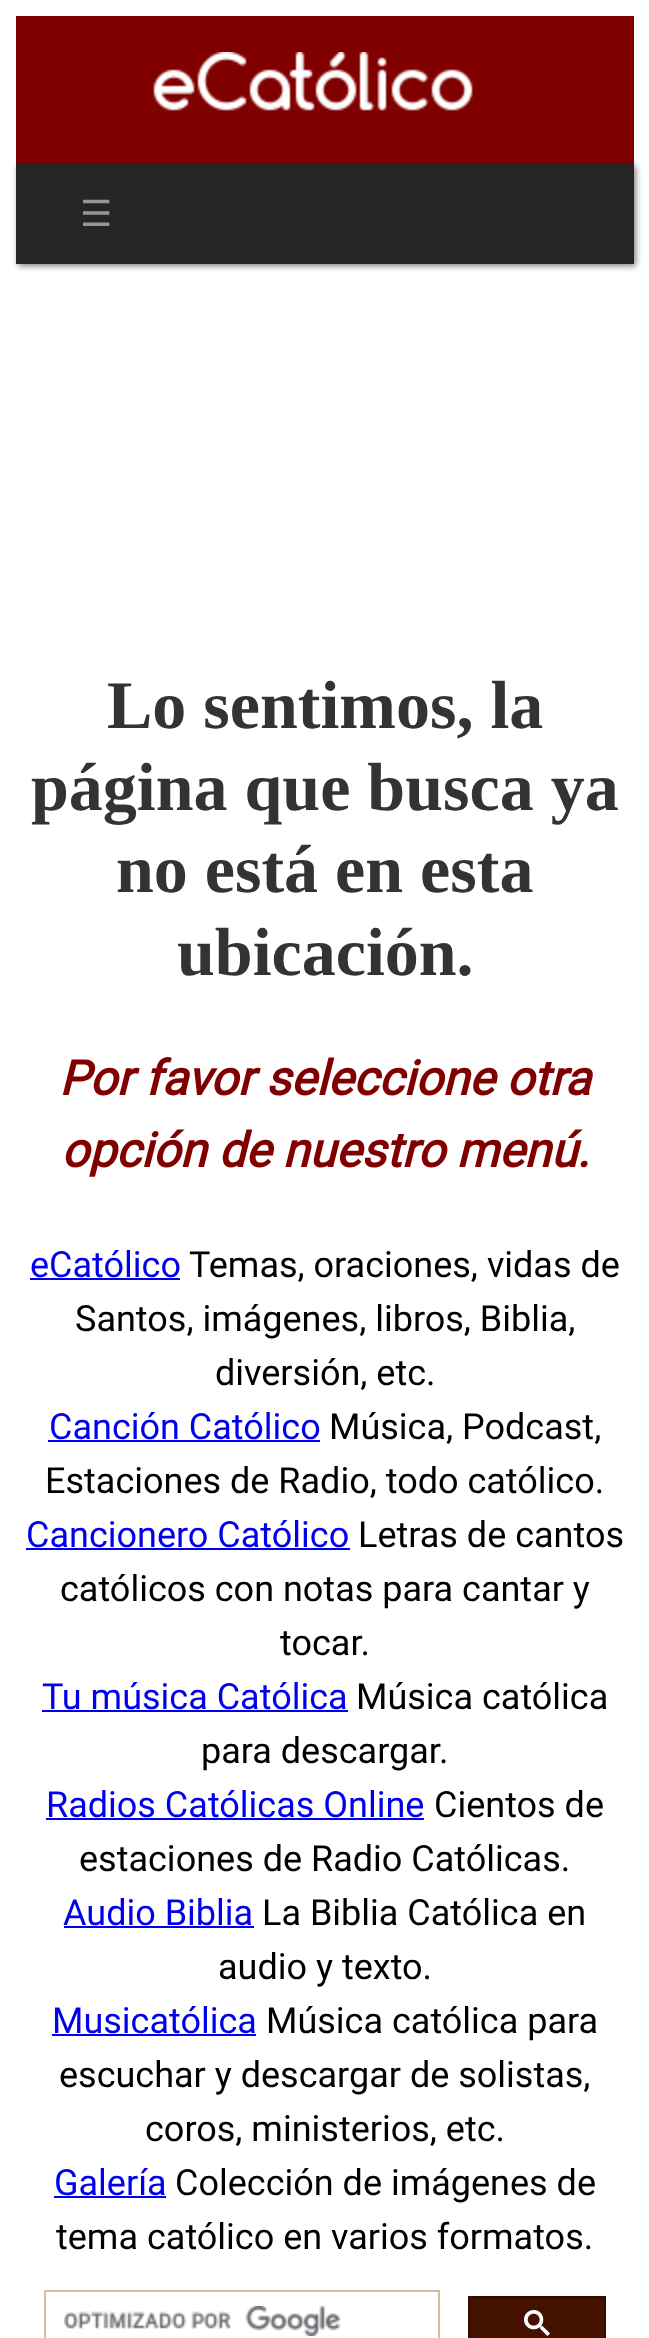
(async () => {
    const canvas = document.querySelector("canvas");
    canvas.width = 649;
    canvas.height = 2338;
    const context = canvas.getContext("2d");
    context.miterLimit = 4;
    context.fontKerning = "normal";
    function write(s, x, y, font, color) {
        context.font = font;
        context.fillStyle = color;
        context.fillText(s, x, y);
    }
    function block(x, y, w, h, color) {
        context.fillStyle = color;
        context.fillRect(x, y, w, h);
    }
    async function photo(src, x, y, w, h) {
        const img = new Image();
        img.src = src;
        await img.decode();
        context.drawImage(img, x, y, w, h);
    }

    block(0, 0, 649, 2338, "rgb(255, 255, 255)");
    block(16, 16, 618, 148, "rgb(128, 0, 0)");
    await photo("media/1.png", 153, 52, 320, 59);
    context.fillStyle = "rgba(0, 0, 0, 0.5)";
    context.filter = "blur(3px)";
    context.beginPath();
    context.rect(18, 166, 618, 100);
    context.fill();
    context.filter = "none";
    block(16, 164, 618, 100, "rgb(37, 37, 37)");
    write("☰", 80, 226, "36px DejaVu Sans", "rgb(149, 149, 149)");
    write("Lo sentimos, la", 107, 728, "bold 68px Liberation Serif", "rgb(51, 51, 51)");
    write("página que busca ya", 31, 810, "bold 68px Liberation Serif", "rgb(51, 51, 51)");
    write("no está en esta", 116, 892, "bold 68px Liberation Serif", "rgb(51, 51, 51)");
    write("ubicación.", 177, 975, "bold 68px Liberation Serif", "rgb(51, 51, 51)");
    write("Por favor seleccione otra", 59, 1095, "italic bold 48px Roboto", "rgb(128, 0, 0)");
    write("opción de nuestro menú.", 61, 1167, "italic bold 48px Roboto", "rgb(128, 0, 0)");
    write("eCatólico", 30, 1277, "36px Roboto", "rgb(0, 0, 238)");
    block(30, 1278, 150, 2, "rgb(0, 0, 238)");
    write("Temas, oraciones, vidas de", 189, 1277, "36px Roboto", "rgb(0, 0, 0)");
    write("Santos, imágenes, libros, Biblia,", 75, 1331, "36px Roboto", "rgb(0, 0, 0)");
    write("diversión, etc.", 215, 1385, "36px Roboto", "rgb(0, 0, 0)");
    write("Canción Católico", 49, 1439, "36px Roboto", "rgb(0, 0, 238)");
    block(48, 1440, 272, 2, "rgb(0, 0, 238)");
    write("Música, Podcast,", 329, 1439, "36px Roboto", "rgb(0, 0, 0)");
    write("Estaciones de Radio, todo católico.", 45, 1493, "36px Roboto", "rgb(0, 0, 0)");
    write("Cancionero Católico", 26, 1547, "36px Roboto", "rgb(0, 0, 238)");
    block(26, 1548, 324, 2, "rgb(0, 0, 238)");
    write("Letras de cantos", 358, 1547, "36px Roboto", "rgb(0, 0, 0)");
    write("católicos con notas para cantar y", 60, 1601, "36px Roboto", "rgb(0, 0, 0)");
    write("tocar.", 280, 1655, "36px Roboto", "rgb(0, 0, 0)");
    write("Tu música Católica", 42, 1709, "36px Roboto", "rgb(0, 0, 238)");
    block(42, 1710, 306, 2, "rgb(0, 0, 238)");
    write("Música católica", 356, 1709, "36px Roboto", "rgb(0, 0, 0)");
    write("para descargar.", 201, 1763, "36px Roboto", "rgb(0, 0, 0)");
    write("Radios Católicas Online", 46, 1817, "36px Roboto", "rgb(0, 0, 238)");
    block(46, 1818, 378, 2, "rgb(0, 0, 238)");
    write("Cientos de", 434, 1817, "36px Roboto", "rgb(0, 0, 0)");
    write("estaciones de Radio Católicas.", 79, 1871, "36px Roboto", "rgb(0, 0, 0)");
    write("Audio Biblia", 63, 1925, "36px Roboto", "rgb(0, 0, 238)");
    block(64, 1926, 190, 2, "rgb(0, 0, 238)");
    write("La Biblia Católica en", 262, 1925, "36px Roboto", "rgb(0, 0, 0)");
    write("audio y texto.", 218, 1979, "36px Roboto", "rgb(0, 0, 0)");
    write("Musicatólica", 52, 2033, "36px Roboto", "rgb(0, 0, 238)");
    block(52, 2034, 204, 2, "rgb(0, 0, 238)");
    write("Música católica para", 266, 2033, "36px Roboto", "rgb(0, 0, 0)");
    write("escuchar y descargar de solistas,", 59, 2087, "36px Roboto", "rgb(0, 0, 0)");
    write("coros, ministerios, etc.", 145, 2141, "36px Roboto", "rgb(0, 0, 0)");
    write("Galería", 54, 2195, "36px Roboto", "rgb(0, 0, 238)");
    block(54, 2196, 112, 2, "rgb(0, 0, 238)");
    write("Colección de imágenes de", 175, 2195, "36px Roboto", "rgb(0, 0, 0)");
    write("tema católico en varios formatos.", 56, 2249, "36px Roboto", "rgb(0, 0, 0)");
    context.strokeStyle = "rgb(211, 188, 161)";
    context.lineWidth = 2;
    context.strokeRect(45, 2291, 394, 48);
    await photo("media/2.png", 64, 2306, 276, 30);
    context.fillStyle = "rgb(70, 18, 0)";
    context.beginPath();
    context.rect(469, 2297, 136, 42);
    context.fill();
    context.strokeStyle = "rgb(48, 13, 0)";
    context.stroke();
    await photo("media/3.png", 524, 2310, 26, 26);
})();
